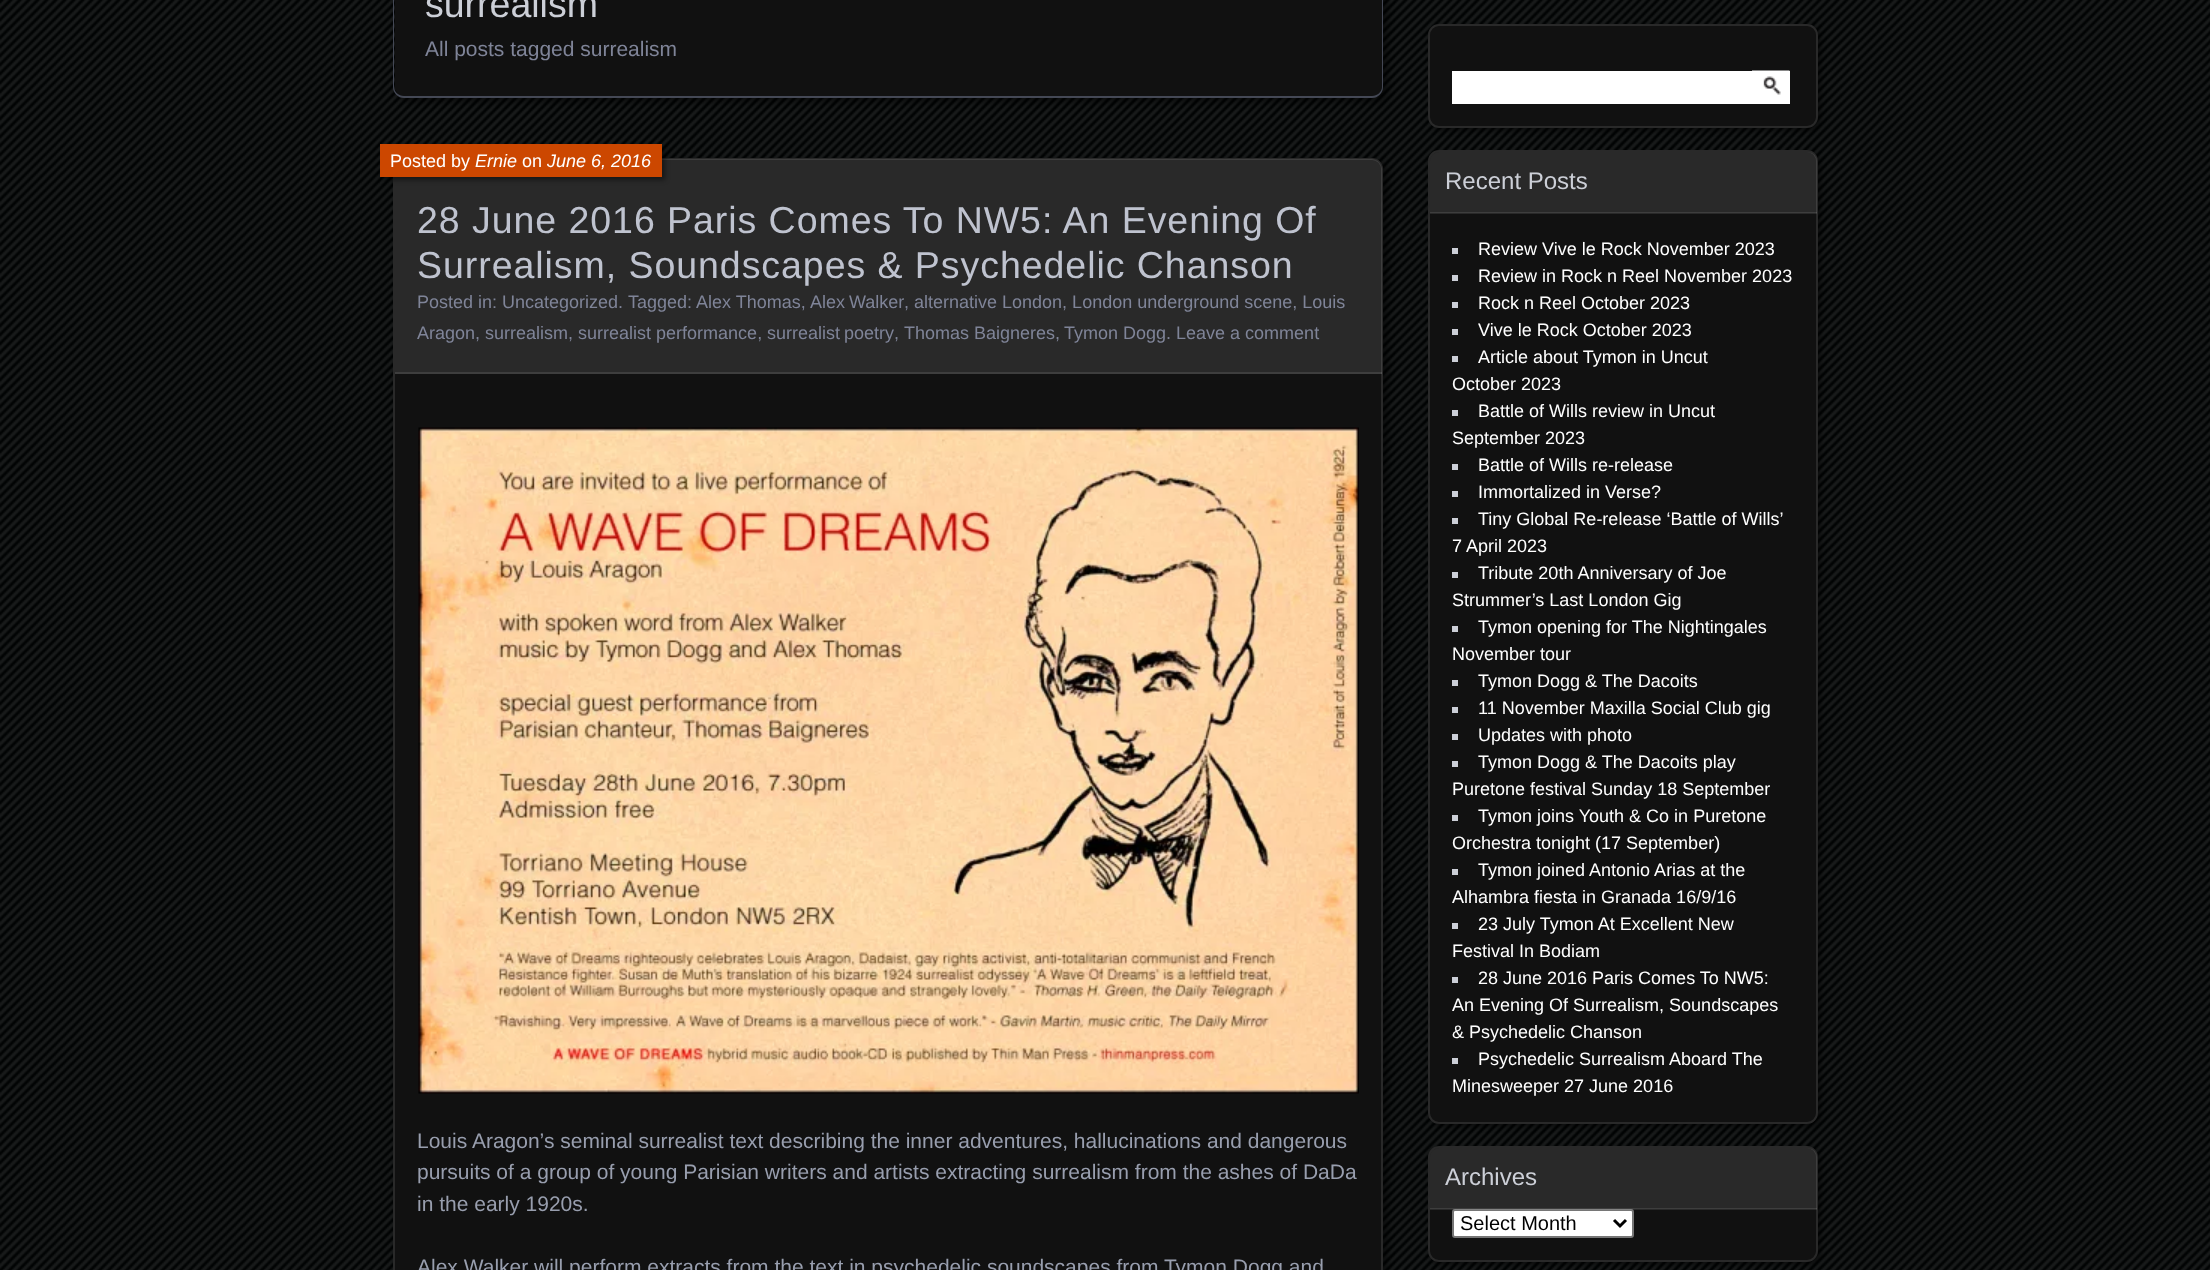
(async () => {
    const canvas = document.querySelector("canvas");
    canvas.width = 2210;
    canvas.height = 1270;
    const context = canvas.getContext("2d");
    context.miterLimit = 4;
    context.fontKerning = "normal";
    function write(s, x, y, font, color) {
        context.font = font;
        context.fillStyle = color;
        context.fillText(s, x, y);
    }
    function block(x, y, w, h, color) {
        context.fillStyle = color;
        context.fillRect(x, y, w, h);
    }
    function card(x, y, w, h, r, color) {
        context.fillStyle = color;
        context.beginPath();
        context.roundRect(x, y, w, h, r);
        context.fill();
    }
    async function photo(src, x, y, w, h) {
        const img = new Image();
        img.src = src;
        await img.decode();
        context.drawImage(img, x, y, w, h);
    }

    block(0, 0, 2210, 1270, "rgb(0, 3, 3)");
    await photo("media/1.png", 0, 0, 2210, 1270);
    context.save();
    context.beginPath();
    context.moveTo(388, 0);
    context.lineTo(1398, 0);
    context.lineTo(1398, 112);
    context.lineTo(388, 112);
    context.closePath();
    context.moveTo(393, -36);
    context.lineTo(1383, -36);
    context.lineTo(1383, 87);
    context.bezierCurveTo(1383, 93, 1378, 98, 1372, 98);
    context.lineTo(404, 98);
    context.bezierCurveTo(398, 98, 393, 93, 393, 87);
    context.closePath();
    context.clip("evenodd");
    context.fillStyle = "rgba(0, 0, 0, 0.45)";
    context.filter = "blur(3px)";
    context.beginPath();
    context.roundRect(398, -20, 990, 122, 11);
    context.fill();
    context.filter = "none";
    context.restore();
    context.fillStyle = "rgb(17, 17, 17)";
    context.beginPath();
    context.moveTo(395, -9);
    context.lineTo(1382, -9);
    context.lineTo(1382, 87);
    context.bezierCurveTo(1382, 92, 1378, 96, 1373, 96);
    context.lineTo(404, 96);
    context.bezierCurveTo(399, 96, 395, 92, 395, 87);
    context.closePath();
    context.fill();
    context.fillStyle = "rgb(68, 72, 85)";
    context.beginPath();
    context.moveTo(393, -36);
    context.lineTo(1383, -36);
    context.lineTo(1383, 87);
    context.bezierCurveTo(1383, 93, 1378, 98, 1372, 98);
    context.lineTo(404, 98);
    context.bezierCurveTo(398, 98, 393, 93, 393, 87);
    context.closePath();
    context.moveTo(394, -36);
    context.lineTo(1382, -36);
    context.lineTo(1382, 87);
    context.bezierCurveTo(1382, 92, 1377, 96, 1372, 96);
    context.lineTo(404, 96);
    context.bezierCurveTo(399, 96, 394, 92, 394, 87);
    context.closePath();
    context.fill("evenodd");
    write("surrealism", 425, 17, "37.5px Liberation Sans", "rgb(204, 207, 215)");
    write("All posts tagged surrealism", 425, 56, "21px Liberation Sans", "rgb(127, 132, 152)");
    context.fillStyle = "rgba(0, 0, 0, 0.45)";
    context.filter = "blur(3px)";
    context.beginPath();
    context.roundRect(398, 162, 990, 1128, 11);
    context.fill();
    context.filter = "none";
    card(393, 158, 990, 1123, 11, "rgb(17, 17, 17)");
    context.beginPath();
    context.roundRect(394, 159, 988, 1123, 10);
    context.strokeStyle = "rgba(255, 255, 255, 0.1)";
    context.lineWidth = 2;
    context.stroke();
    context.fillStyle = "rgba(255, 255, 255, 0.1)";
    context.beginPath();
    context.roundRect(395, 159, 987, 215, [11, 11, 0, 0]);
    context.fill();
    block(395, 372, 987, 2, "rgba(255, 255, 255, 0.1)");
    context.fillStyle = "rgba(0, 0, 0, 0.45)";
    context.filter = "blur(2.5px)";
    context.beginPath();
    context.rect(383, 147, 282, 33);
    context.fill();
    context.filter = "none";
    block(380, 144, 282, 33, "rgb(204, 71, 0)");
    write("Posted by", 390, 167, "18px Liberation Sans", "rgb(255, 255, 255)");
    write("Ernie", 475, 167, "italic 18px Liberation Sans", "rgb(255, 255, 255)");
    write("on", 522, 167, "18px Liberation Sans", "rgb(255, 255, 255)");
    write("June 6, 2016", 547, 167, "italic 18px Liberation Sans", "rgb(255, 255, 255)");
    context.letterSpacing = "0.95px";
    write("28 June 2016 Paris Comes To NW5: An Evening Of", 417, 233, "37.5px Liberation Sans", "rgb(191, 195, 207)");
    write("Surrealism, Soundscapes & Psychedelic Chanson", 417, 278, "37.5px Liberation Sans", "rgb(191, 195, 207)");
    context.letterSpacing = "0px";
    write("Posted in: Uncategorized.", 417, 308, "18px Liberation Sans", "rgb(127, 132, 152)");
    write("Tagged:", 628, 308, "18px Liberation Sans", "rgb(127, 132, 152)");
    write("Alex Thomas,", 696, 308, "18px Liberation Sans", "rgb(127, 132, 152)");
    context.wordSpacing = "-1px";
    write("Alex Walker", 810, 308, "18px Liberation Sans", "rgb(127, 132, 152)");
    context.wordSpacing = "0px";
    write(", alternative London, London underground scene, Louis", 904, 308, "18px Liberation Sans", "rgb(127, 132, 152)");
    write("Aragon, surrealism, surrealist performance,", 417, 339, "18px Liberation Sans", "rgb(127, 132, 152)");
    context.wordSpacing = "-1px";
    write("surrealist poetry", 767, 339, "18px Liberation Sans", "rgb(127, 132, 152)");
    context.wordSpacing = "0px";
    write(",", 894, 339, "18px Liberation Sans", "rgb(127, 132, 152)");
    write("Thomas Baigneres,", 904, 339, "18px Liberation Sans", "rgb(127, 132, 152)");
    write("Tymon Dogg. Leave a comment", 1064, 339, "18px Liberation Sans", "rgb(127, 132, 152)");
    await photo("media/2.png", 418, 427, 941, 667);
    write("Louis Aragon’s seminal surrealist text describing the inner adventures, hallucinations and dangerous", 417, 1148, "21px Liberation Sans", "rgb(152, 158, 174)");
    write("pursuits of a group of young Parisian writers and artists extracting surrealism from the ashes of DaDa", 417, 1179, "21px Liberation Sans", "rgb(152, 158, 174)");
    write("in the early 1920s.", 417, 1211, "21px Liberation Sans", "rgb(152, 158, 174)");
    write("Alex Walker will perform extracts from the text in psychedelic soundscapes from Tymon Dogg and", 417, 1274, "21px Liberation Sans", "rgb(152, 158, 174)");
    context.fillStyle = "rgba(0, 0, 0, 0.45)";
    context.filter = "blur(2.5px)";
    context.beginPath();
    context.roundRect(1431, 27, 390, 104, 11);
    context.fill();
    context.filter = "none";
    card(1428, 24, 390, 104, 11, "rgb(17, 17, 17)");
    context.beginPath();
    context.roundRect(1429, 25, 388, 102, 10);
    context.stroke();
    block(1452, 71, 338, 33, "rgb(255, 255, 255)");
    await photo("media/3.png", 1752, 70, 38, 25);
    context.fillStyle = "rgba(0, 0, 0, 0.45)";
    context.filter = "blur(2.5px)";
    context.beginPath();
    context.roundRect(1431, 153, 390, 974, 11);
    context.fill();
    context.filter = "none";
    card(1428, 150, 390, 974, 11, "rgb(17, 17, 17)");
    context.beginPath();
    context.roundRect(1429, 151, 388, 972, 10);
    context.stroke();
    context.fillStyle = "rgba(255, 255, 255, 0.1)";
    context.beginPath();
    context.roundRect(1430, 152, 387, 61, [9, 9, 0, 0]);
    context.fill();
    block(1430, 212, 387, 2, "rgba(255, 255, 255, 0.1)");
    write("Recent Posts", 1445, 189, "24px Liberation Sans", "rgb(204, 207, 215)");
    block(1452, 248, 6, 6, "rgb(204, 207, 215)");
    write("Review Vive le Rock November 2023", 1478, 255, "18px Liberation Sans", "rgb(255, 255, 255)");
    block(1452, 275, 6, 6, "rgb(204, 207, 215)");
    write("Review in Rock n Reel November 2023", 1478, 282, "18px Liberation Sans", "rgb(255, 255, 255)");
    block(1452, 302, 6, 6, "rgb(204, 207, 215)");
    write("Rock n Reel October 2023", 1478, 309, "18px Liberation Sans", "rgb(255, 255, 255)");
    block(1452, 329, 6, 6, "rgb(204, 207, 215)");
    write("Vive le Rock October 2023", 1478, 336, "18px Liberation Sans", "rgb(255, 255, 255)");
    block(1452, 356, 6, 6, "rgb(204, 207, 215)");
    write("Article about Tymon in Uncut", 1478, 363, "18px Liberation Sans", "rgb(255, 255, 255)");
    write("October 2023", 1452, 390, "18px Liberation Sans", "rgb(255, 255, 255)");
    block(1452, 410, 6, 6, "rgb(204, 207, 215)");
    write("Battle of Wills review in Uncut", 1478, 417, "18px Liberation Sans", "rgb(255, 255, 255)");
    write("September 2023", 1452, 444, "18px Liberation Sans", "rgb(255, 255, 255)");
    block(1452, 464, 6, 6, "rgb(204, 207, 215)");
    write("Battle of Wills re-release", 1478, 471, "18px Liberation Sans", "rgb(255, 255, 255)");
    block(1452, 491, 6, 6, "rgb(204, 207, 215)");
    write("Immortalized in Verse?", 1478, 498, "18px Liberation Sans", "rgb(255, 255, 255)");
    block(1452, 518, 6, 6, "rgb(204, 207, 215)");
    write("Tiny Global Re-release ‘Battle of Wills’", 1478, 525, "18px Liberation Sans", "rgb(255, 255, 255)");
    write("7 April 2023", 1452, 552, "18px Liberation Sans", "rgb(255, 255, 255)");
    block(1452, 572, 6, 6, "rgb(204, 207, 215)");
    write("Tribute 20th Anniversary of Joe", 1478, 579, "18px Liberation Sans", "rgb(255, 255, 255)");
    write("Strummer’s Last London Gig", 1452, 606, "18px Liberation Sans", "rgb(255, 255, 255)");
    block(1452, 626, 6, 6, "rgb(204, 207, 215)");
    write("Tymon opening for The Nightingales", 1478, 633, "18px Liberation Sans", "rgb(255, 255, 255)");
    write("November tour", 1452, 660, "18px Liberation Sans", "rgb(255, 255, 255)");
    block(1452, 680, 6, 6, "rgb(204, 207, 215)");
    write("Tymon Dogg & The Dacoits", 1478, 687, "18px Liberation Sans", "rgb(255, 255, 255)");
    block(1452, 707, 6, 6, "rgb(204, 207, 215)");
    write("11 November Maxilla Social Club gig", 1478, 714, "18px Liberation Sans", "rgb(255, 255, 255)");
    block(1452, 734, 6, 6, "rgb(204, 207, 215)");
    write("Updates with photo", 1478, 741, "18px Liberation Sans", "rgb(255, 255, 255)");
    block(1452, 761, 6, 6, "rgb(204, 207, 215)");
    write("Tymon Dogg & The Dacoits play", 1478, 768, "18px Liberation Sans", "rgb(255, 255, 255)");
    write("Puretone festival Sunday 18 September", 1452, 795, "18px Liberation Sans", "rgb(255, 255, 255)");
    block(1452, 815, 6, 6, "rgb(204, 207, 215)");
    write("Tymon joins Youth & Co in Puretone", 1478, 822, "18px Liberation Sans", "rgb(255, 255, 255)");
    write("Orchestra tonight (17 September)", 1452, 849, "18px Liberation Sans", "rgb(255, 255, 255)");
    block(1452, 869, 6, 6, "rgb(204, 207, 215)");
    write("Tymon joined Antonio Arias at the", 1478, 876, "18px Liberation Sans", "rgb(255, 255, 255)");
    write("Alhambra fiesta in Granada 16/9/16", 1452, 903, "18px Liberation Sans", "rgb(255, 255, 255)");
    block(1452, 923, 6, 6, "rgb(204, 207, 215)");
    write("23 July Tymon At Excellent New", 1478, 930, "18px Liberation Sans", "rgb(255, 255, 255)");
    write("Festival In Bodiam", 1452, 957, "18px Liberation Sans", "rgb(255, 255, 255)");
    block(1452, 977, 6, 6, "rgb(204, 207, 215)");
    write("28 June 2016 Paris Comes To NW5:", 1478, 984, "18px Liberation Sans", "rgb(255, 255, 255)");
    write("An Evening Of Surrealism, Soundscapes", 1452, 1011, "18px Liberation Sans", "rgb(255, 255, 255)");
    write("& Psychedelic Chanson", 1452, 1038, "18px Liberation Sans", "rgb(255, 255, 255)");
    block(1452, 1058, 6, 6, "rgb(204, 207, 215)");
    write("Psychedelic Surrealism Aboard The", 1478, 1065, "18px Liberation Sans", "rgb(255, 255, 255)");
    write("Minesweeper 27 June 2016", 1452, 1092, "18px Liberation Sans", "rgb(255, 255, 255)");
    context.fillStyle = "rgba(0, 0, 0, 0.45)";
    context.filter = "blur(2.5px)";
    context.beginPath();
    context.roundRect(1431, 1149, 390, 116, 11);
    context.fill();
    context.filter = "none";
    card(1428, 1146, 390, 116, 11, "rgb(17, 17, 17)");
    context.beginPath();
    context.roundRect(1429, 1147, 388, 114, 10);
    context.stroke();
    context.fillStyle = "rgba(255, 255, 255, 0.1)";
    context.beginPath();
    context.roundRect(1430, 1148, 387, 61, [9, 9, 0, 0]);
    context.fill();
    context.fillStyle = "rgb(255, 255, 255)";
    context.beginPath();
    context.roundRect(1453, 1210, 180, 27, 2);
    context.fill();
    context.strokeStyle = "rgb(118, 118, 118)";
    context.stroke();
    block(1430, 1208, 387, 2, "rgba(255, 255, 255, 0.1)");
    write("Archives", 1445, 1185, "24px Liberation Sans", "rgb(204, 207, 215)");
    context.beginPath();
    context.moveTo(1614, 1220);
    context.lineTo(1620, 1226);
    context.lineTo(1626, 1220);
    context.strokeStyle = "rgb(0, 0, 0)";
    context.lineWidth = 3;
    context.stroke();
    write("Select Month", 1460, 1230, "20px Liberation Sans", "rgb(0, 0, 0)");
})();
